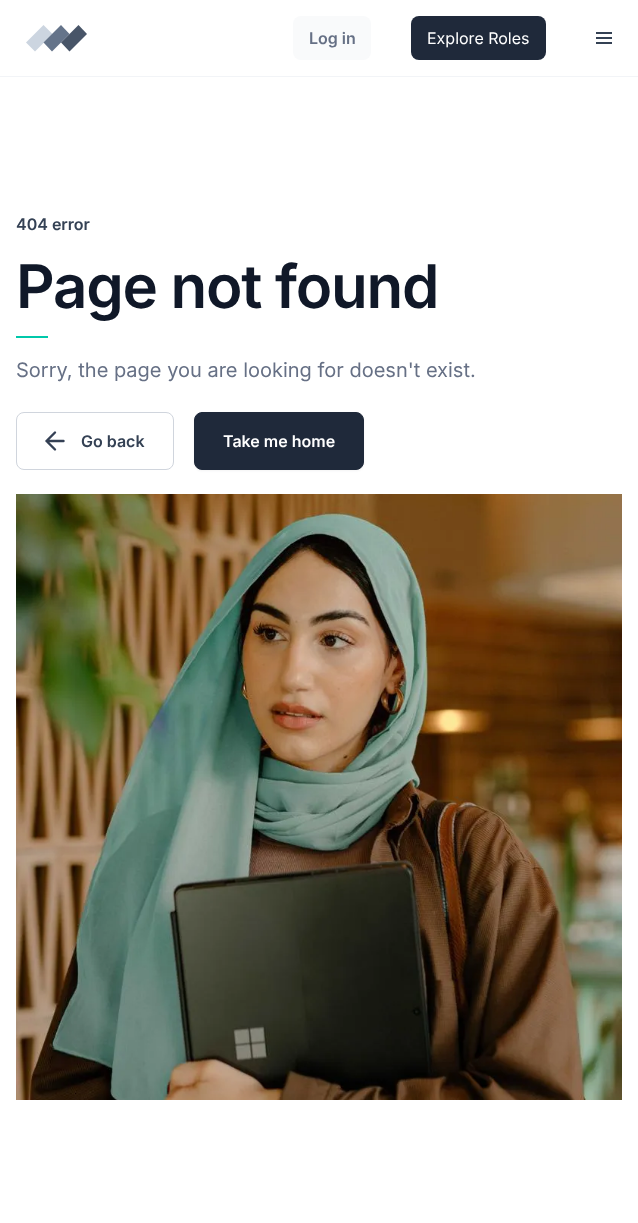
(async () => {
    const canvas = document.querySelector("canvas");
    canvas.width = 638;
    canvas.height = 1223;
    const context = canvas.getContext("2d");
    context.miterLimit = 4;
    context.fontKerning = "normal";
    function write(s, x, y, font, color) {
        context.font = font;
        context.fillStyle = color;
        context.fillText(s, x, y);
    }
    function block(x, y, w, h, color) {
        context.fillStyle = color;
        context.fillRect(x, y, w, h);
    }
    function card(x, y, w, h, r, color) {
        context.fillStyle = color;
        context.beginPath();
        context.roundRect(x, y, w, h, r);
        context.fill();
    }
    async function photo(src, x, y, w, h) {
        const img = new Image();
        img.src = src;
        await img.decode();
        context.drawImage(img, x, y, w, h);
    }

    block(0, 0, 638, 1223, "rgb(255, 255, 255)");
    block(0, 76, 638, 1, "rgb(242, 244, 247)");
    context.fillStyle = "rgb(204, 213, 224)";
    context.beginPath();
    context.moveTo(52.5, 34);
    context.lineTo(43.5, 25);
    context.lineTo(26, 42.5);
    context.lineTo(35, 51.5);
    context.closePath();
    context.fill();
    context.fillStyle = "rgb(101, 116, 138)";
    context.beginPath();
    context.moveTo(69.5, 34);
    context.lineTo(61, 25);
    context.lineTo(43.5, 42.5);
    context.lineTo(52, 51.5);
    context.closePath();
    context.fill();
    context.fillStyle = "rgb(72, 85, 104)";
    context.beginPath();
    context.moveTo(87, 34);
    context.lineTo(78.5, 25);
    context.lineTo(61, 42.5);
    context.lineTo(69.5, 51.5);
    context.closePath();
    context.fill();
    card(293, 16, 78, 44, 8, "rgb(249, 250, 251)");
    write("Log in", 309, 44, "600 16px Inter", "rgb(102, 112, 133)");
    card(411, 16, 135, 44, 8, "rgb(31, 41, 58)");
    write("Explore Roles", 427, 44, "16px Inter", "rgb(255, 255, 255)");
    block(596, 32, 16, 2, "rgb(52, 65, 84)");
    block(596, 37, 16, 2, "rgb(52, 65, 84)");
    block(596, 42, 16, 2, "rgb(52, 65, 84)");
    write("404 error", 16, 230, "600 16px Inter", "rgb(52, 65, 84)");
    context.letterSpacing = "-1.25px";
    write("Page not found", 16, 308, "600 60px Inter", "rgb(16, 24, 40)");
    block(16, 336, 32, 2, "rgb(0, 200, 170)");
    context.letterSpacing = "0px";
    write("Sorry, the page you are looking for doesn't exist.", 16, 377, "20px Inter", "rgb(102, 112, 133)");
    context.beginPath();
    context.roundRect(16.5, 412.5, 157, 57, 7.5);
    context.strokeStyle = "rgb(208, 213, 221)";
    context.stroke();
    context.beginPath();
    context.moveTo(63.5, 441);
    context.lineTo(46.5, 441);
    context.moveTo(46.5, 441);
    context.lineTo(55, 449.5);
    context.moveTo(46.5, 441);
    context.lineTo(55, 432.5);
    context.strokeStyle = "rgb(52, 64, 84)";
    context.lineWidth = 2.4;
    context.lineCap = "round";
    context.lineJoin = "round";
    context.stroke();
    write("Go back", 81, 447, "600 16px Inter", "rgb(52, 65, 84)");
    context.fillStyle = "rgba(16, 24, 40, 0.05)";
    context.filter = "blur(1px)";
    context.beginPath();
    context.roundRect(194, 413, 170, 58, 8);
    context.fill();
    context.filter = "none";
    context.fillStyle = "rgb(31, 41, 58)";
    context.beginPath();
    context.roundRect(194.5, 412.5, 169, 57, 7.5);
    context.fill();
    context.strokeStyle = "rgb(31, 41, 58)";
    context.lineWidth = 1;
    context.lineJoin = "miter";
    context.stroke();
    write("Take me home", 223, 447, "600 16px Inter", "rgb(255, 255, 255)");
    await photo("media/1.png", 16, 494, 606, 606);
})();
